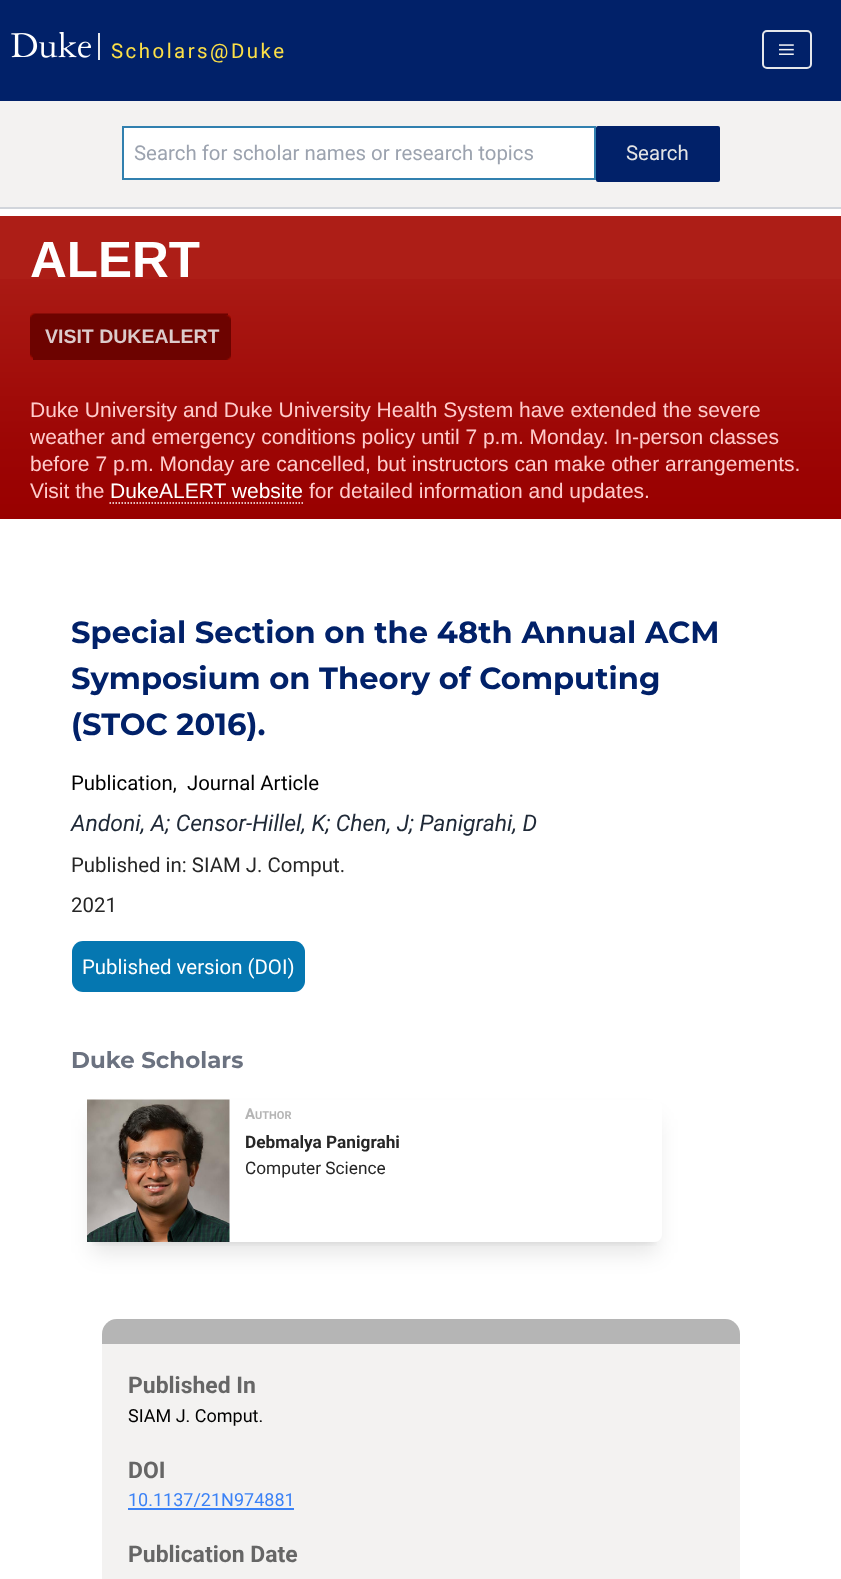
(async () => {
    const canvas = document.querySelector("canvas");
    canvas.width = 841;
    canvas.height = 1579;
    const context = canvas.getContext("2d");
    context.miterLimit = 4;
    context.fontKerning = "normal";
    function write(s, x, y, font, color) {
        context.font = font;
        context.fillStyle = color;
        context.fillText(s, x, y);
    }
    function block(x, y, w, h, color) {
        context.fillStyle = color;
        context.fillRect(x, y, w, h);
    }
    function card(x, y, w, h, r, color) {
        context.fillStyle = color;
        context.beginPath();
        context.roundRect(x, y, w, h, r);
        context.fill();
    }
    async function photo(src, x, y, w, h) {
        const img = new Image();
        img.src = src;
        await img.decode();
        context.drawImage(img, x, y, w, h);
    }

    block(0, 0, 841, 1579, "rgb(255, 255, 255)");
    block(0, 0, 841, 101, "rgb(1, 33, 105)");
    await photo("media/1.png", 11, 32, 80, 26);
    block(98, 33, 2, 27, "rgb(229, 231, 235)");
    context.letterSpacing = "2.5px";
    write("Scholars@Duke", 111, 58, "20.4px Roboto", "rgb(253, 224, 71)");
    context.beginPath();
    context.roundRect(763, 31, 48, 37, 4);
    context.strokeStyle = "rgb(229, 231, 235)";
    context.lineWidth = 2;
    context.stroke();
    await photo("media/2.png", 779, 44, 15, 11);
    block(0, 207, 841, 2, "rgb(209, 213, 219)");
    block(0, 101, 841, 106, "rgb(243, 242, 241)");
    context.fillStyle = "rgb(255, 255, 255)";
    context.beginPath();
    context.rect(123, 127, 472, 52);
    context.fill();
    context.strokeStyle = "rgb(49, 128, 175)";
    context.stroke();
    context.letterSpacing = "0px";
    write("Search for scholar names or research topics", 134, 160, "20.4px Roboto", "rgb(156, 163, 175)");
    card(596, 126, 124, 56, 2, "rgb(1, 33, 105)");
    write("Search", 626, 160, "20.4px Roboto", "rgb(229, 229, 229)");
    block(0, 216, 841, 63, "rgb(173, 30, 23)");
    await photo("media/3.png", 0, 279, 841, 240);
    write("ALERT", 30, 277, "bold 51px Liberation Sans", "rgb(255, 255, 255)");
    await photo("media/4.png", 30, 313, 198, 46);
    await photo("media/5.png", 33, 315, 198, 45);
    write("VISIT DUKEALERT", 45, 343, "bold 19.5px Liberation Sans", "rgb(220, 203, 203)");
    write("Duke University and Duke University Health System have extended the severe", 30, 417, "21px Liberation Sans", "rgb(255, 204, 204)");
    write("weather and emergency conditions policy until 7 p.m. Monday. In-person classes", 30, 444, "21px Liberation Sans", "rgb(255, 204, 204)");
    write("before 7 p.m. Monday are cancelled, but instructors can make other arrangements.", 30, 471, "21px Liberation Sans", "rgb(255, 204, 204)");
    write("Visit the", 30, 498, "21px Liberation Sans", "rgb(255, 204, 204)");
    write("DukeALERT website", 110, 498, "21px Liberation Sans", "rgb(255, 255, 255)");
    context.beginPath();
    context.moveTo(109.5, 503);
    context.lineTo(303, 503);
    context.strokeStyle = "rgb(255, 255, 255)";
    context.lineWidth = 1.5;
    context.setLineDash([1.5, 1.5]);
    context.stroke();
    write("for detailed information and updates.", 309, 498, "21px Liberation Sans", "rgb(255, 204, 204)");
    write("Special Section on the 48th Annual ACM", 71, 643, "bold 30.6px Montserrat", "rgb(1, 33, 105)");
    write("Symposium on Theory of Computing", 71, 689, "bold 30.6px Montserrat", "rgb(1, 33, 105)");
    write("(STOC 2016).", 71, 735, "bold 30.6px Montserrat", "rgb(1, 33, 105)");
    write("Publication,  Journal Article", 71, 790, "20.4px Roboto", "rgb(0, 0, 0)");
    write("Andoni, A; Censor-Hillel, K; Chen, J; Panigrahi, D", 71, 831, "italic 22.95px Roboto", "rgb(31, 41, 55)");
    write("Published in: SIAM J. Comput.", 71, 872, "20.4px Roboto", "rgb(38, 38, 38)");
    write("2021", 71, 912, "20.4px Roboto", "rgb(38, 38, 38)");
    card(72, 941, 233, 51, 11, "rgb(5, 119, 177)");
    write("Published version (DOI)", 82, 974, "20.4px Roboto", "rgb(255, 255, 255)");
    write("Duke Scholars", 71, 1068, "bold 22.95px Montserrat", "rgb(107, 114, 128)");
    context.save();
    context.beginPath();
    context.rect(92, 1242, 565, 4);
    context.clip();
    context.fillStyle = "rgba(0, 0, 0, 0.1)";
    context.filter = "blur(4.5px)";
    context.beginPath();
    context.roundRect(93, 1112, 563, 130, 1.5);
    context.fill();
    context.filter = "none";
    context.restore();
    context.save();
    context.beginPath();
    context.moveTo(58, 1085);
    context.lineTo(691, 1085);
    context.lineTo(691, 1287);
    context.lineTo(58, 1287);
    context.closePath();
    context.moveTo(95, 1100);
    context.lineTo(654, 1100);
    context.bezierCurveTo(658.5, 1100, 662, 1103.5, 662, 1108);
    context.lineTo(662, 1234);
    context.bezierCurveTo(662, 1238.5, 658.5, 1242, 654, 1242);
    context.lineTo(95, 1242);
    context.bezierCurveTo(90.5, 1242, 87, 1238.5, 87, 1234);
    context.lineTo(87, 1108);
    context.bezierCurveTo(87, 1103.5, 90.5, 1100, 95, 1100);
    context.closePath();
    context.clip("evenodd");
    context.fillStyle = "rgba(0, 0, 0, 0.1)";
    context.filter = "blur(11px)";
    context.beginPath();
    context.roundRect(92, 1119, 565, 134, 3);
    context.fill();
    context.filter = "none";
    context.restore();
    await photo("media/6.png", 87, 1099, 143, 143);
    write("A", 245, 1119, "bold 15px Roboto", "rgb(181, 181, 181)");
    write("UTHOR", 255, 1119, "bold 11px Roboto", "rgb(181, 181, 181)");
    write("Debmalya Panigrahi", 245, 1148, "bold 17.25px Roboto", "rgb(38, 38, 38)");
    write("Computer Science", 245, 1174, "17.25px Roboto", "rgb(38, 38, 38)");
    card(102, 1319, 638, 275, 15, "rgb(243, 242, 241)");
    context.fillStyle = "rgb(181, 181, 181)";
    context.beginPath();
    context.roundRect(102, 1319, 638, 25, [15, 15, 0, 0]);
    context.fill();
    write("Published In", 128, 1393, "bold 22.95px Roboto", "rgb(102, 102, 102)");
    write("SIAM J. Comput.", 128, 1422, "18px Roboto", "rgb(0, 0, 0)");
    write("DOI", 128, 1478, "bold 22.95px Roboto", "rgb(102, 102, 102)");
    write("10.1137/21N974881", 128, 1506, "18px Roboto", "rgb(59, 130, 246)");
    block(128, 1508, 166, 2, "rgb(59, 130, 246)");
    write("Publication Date", 128, 1562, "bold 22.95px Roboto", "rgb(102, 102, 102)");
})();
